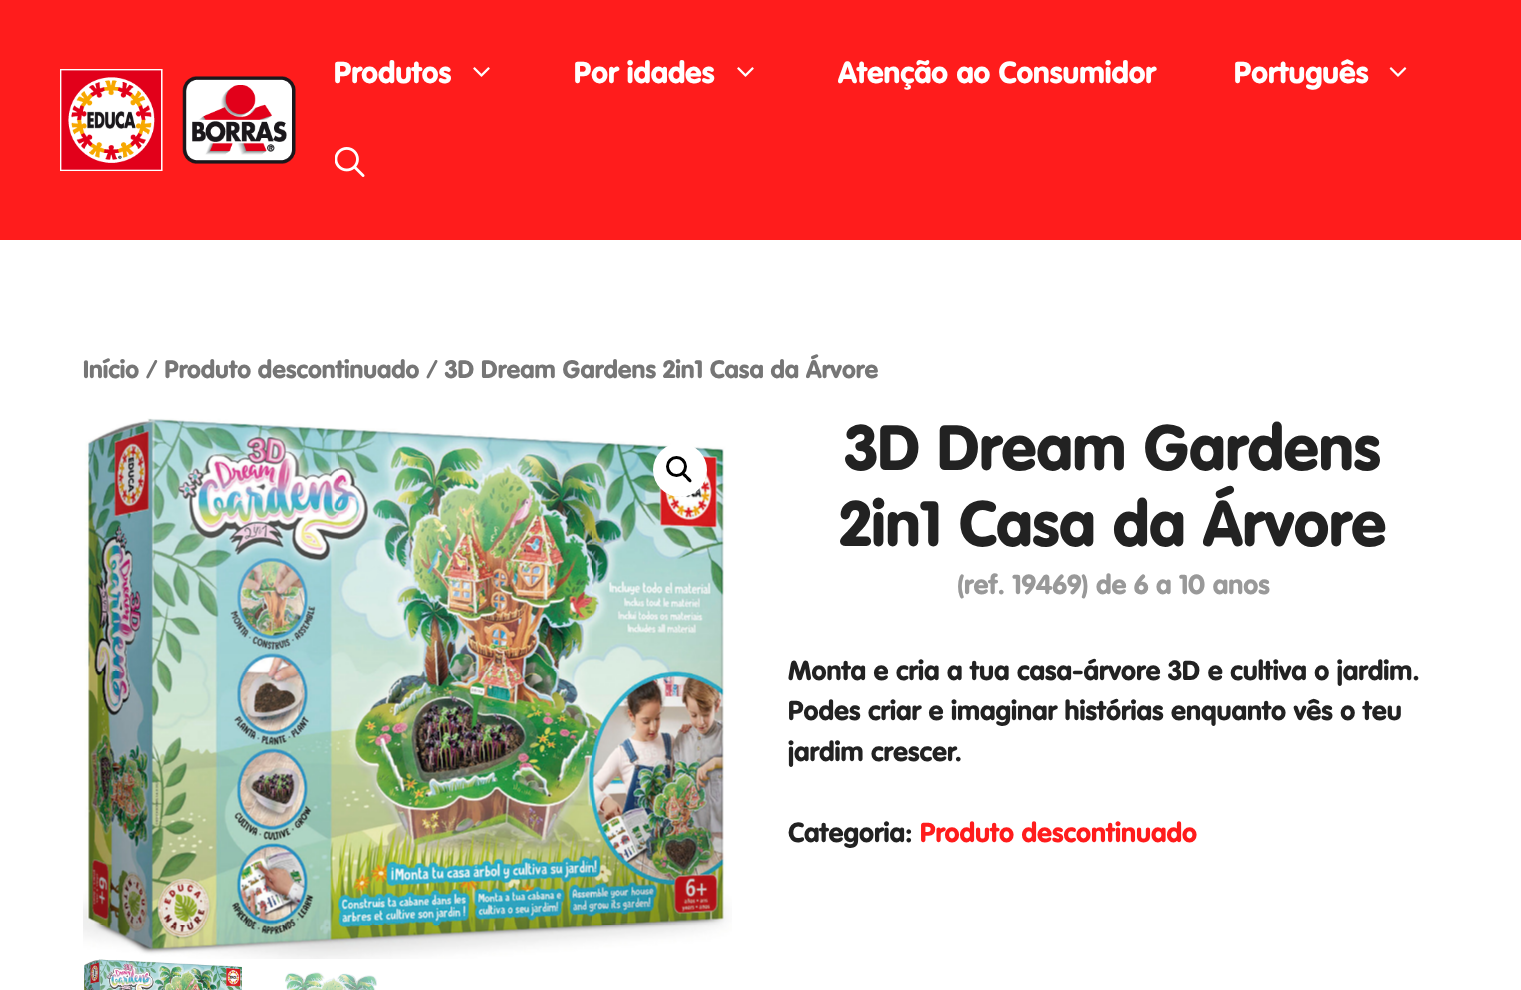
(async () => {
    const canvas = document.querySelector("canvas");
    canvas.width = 1521;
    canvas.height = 990;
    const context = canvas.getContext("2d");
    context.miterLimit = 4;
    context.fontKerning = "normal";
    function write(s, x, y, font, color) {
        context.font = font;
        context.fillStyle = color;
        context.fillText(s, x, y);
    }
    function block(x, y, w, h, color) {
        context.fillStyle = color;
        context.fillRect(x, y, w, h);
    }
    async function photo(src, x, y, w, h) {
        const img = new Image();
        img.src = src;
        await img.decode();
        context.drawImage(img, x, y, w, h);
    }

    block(0, 0, 1521, 990, "rgb(255, 255, 255)");
    block(0, 0, 1521, 240, "rgb(255, 28, 28)");
    await photo("media/1.png", 60, 69, 236, 102);
    write("Produtos", 334, 83, "900 30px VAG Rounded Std", "rgb(255, 255, 255)");
    await photo("media/2.png", 473, 67, 17, 10);
    write("Por idades", 574, 83, "900 30px VAG Rounded Std", "rgb(255, 255, 255)");
    await photo("media/2.png", 737, 67, 17, 10);
    write("Atenção ao Consumidor", 838, 83, "900 30px VAG Rounded Std", "rgb(255, 255, 255)");
    write("Português", 1234, 83, "900 30px VAG Rounded Std", "rgb(255, 255, 255)");
    await photo("media/3.png", 1389, 67, 18, 10);
    await photo("media/4.png", 335, 147, 30, 30);
    write("Início / Produto descontinuado / 3D Dream Gardens 2in1 Casa da Árvore", 83, 378, "900 24.85px VAG Rounded Std", "rgb(118, 118, 118)");
    await photo("media/5.png", 83, 418, 649, 541);
    context.fillStyle = "rgb(255, 255, 255)";
    context.beginPath();
    context.arc(680, 470, 27, 0, Math.PI * 2);
    context.fill();
    context.beginPath();
    context.arc(676.5, 466.5, 9, 0, Math.PI * 2);
    context.strokeStyle = "rgb(0, 0, 0)";
    context.lineWidth = 3;
    context.stroke();
    context.fillStyle = "rgb(0, 0, 0)";
    context.beginPath();
    context.moveTo(682.5, 473.5);
    context.bezierCurveTo(684.5, 471.5, 687, 475.5, 688, 476.5);
    context.bezierCurveTo(689, 477.5, 693, 480, 691, 482);
    context.bezierCurveTo(689.5, 483.5, 686.5, 479.5, 686, 478.5);
    context.bezierCurveTo(685, 477.5, 681, 475, 682.5, 473.5);
    context.closePath();
    context.fill();
    await photo("media/6.png", 84, 959, 158, 31);
    await photo("media/7.png", 285, 972, 92, 18);
    write("3D Dream Gardens", 845, 470, "900 63px VAG Rounded Std", "rgb(34, 34, 34)");
    write("2in1 Casa da Árvore", 840, 546, "900 63px VAG Rounded Std", "rgb(34, 34, 34)");
    write("(ref. 19469) de 6 a 10 anos", 957, 594, "900 27px VAG Rounded Std", "rgb(153, 153, 153)");
    write("Monta e cria a tua casa-árvore 3D e cultiva o jardim.", 788, 680, "900 27px VAG Rounded Std", "rgb(34, 34, 34)");
    write("Podes criar e imaginar histórias enquanto vês o teu", 788, 720, "900 27px VAG Rounded Std", "rgb(34, 34, 34)");
    write("jardim crescer.", 788, 761, "900 27px VAG Rounded Std", "rgb(34, 34, 34)");
    write("Categoria:", 788, 842, "900 27px VAG Rounded Std", "rgb(34, 34, 34)");
    write("Produto descontinuado", 920, 842, "900 27px VAG Rounded Std", "rgb(255, 28, 28)");
})();
